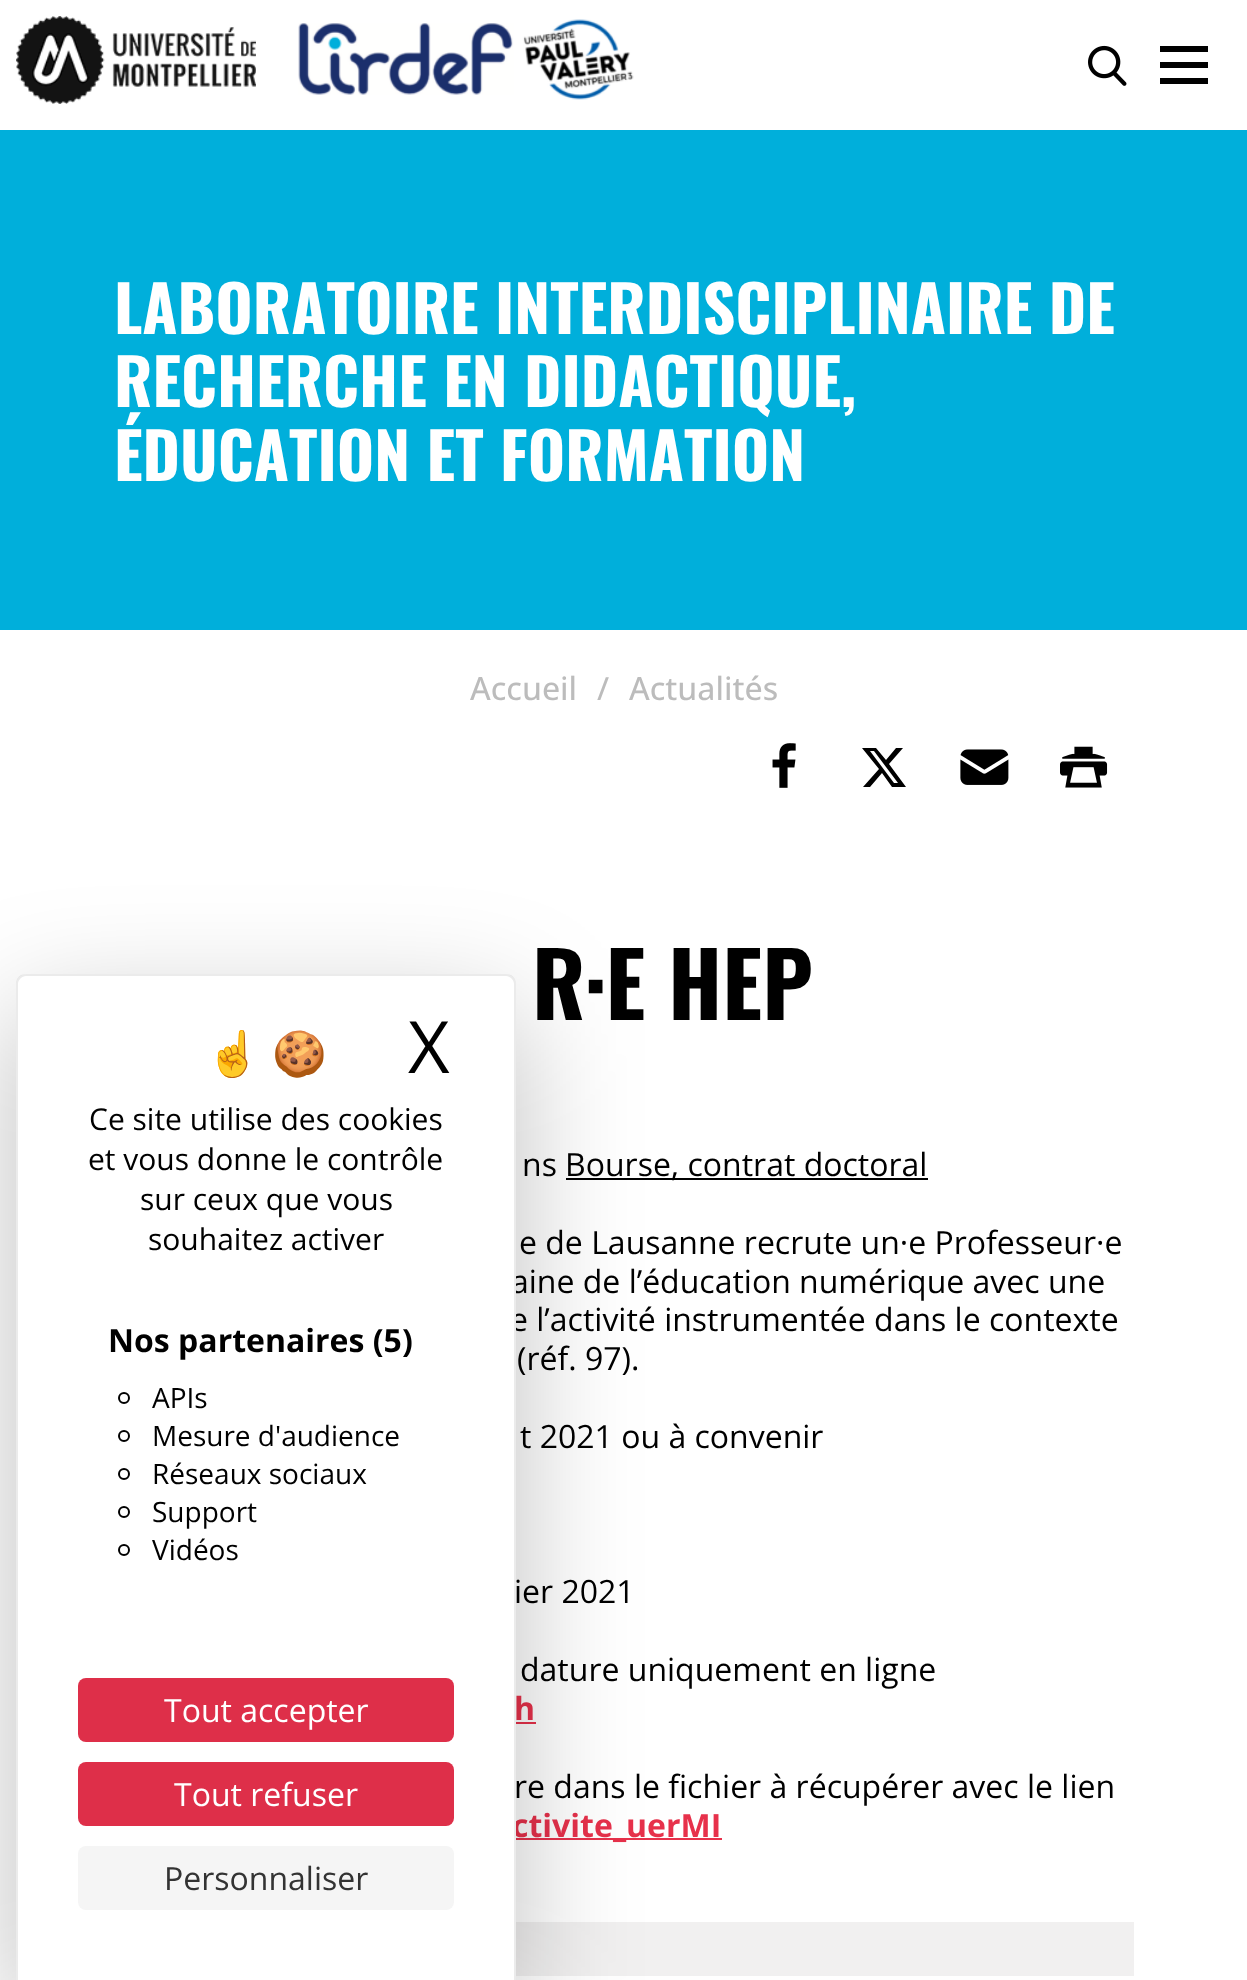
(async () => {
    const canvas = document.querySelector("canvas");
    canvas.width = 1247;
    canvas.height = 1980;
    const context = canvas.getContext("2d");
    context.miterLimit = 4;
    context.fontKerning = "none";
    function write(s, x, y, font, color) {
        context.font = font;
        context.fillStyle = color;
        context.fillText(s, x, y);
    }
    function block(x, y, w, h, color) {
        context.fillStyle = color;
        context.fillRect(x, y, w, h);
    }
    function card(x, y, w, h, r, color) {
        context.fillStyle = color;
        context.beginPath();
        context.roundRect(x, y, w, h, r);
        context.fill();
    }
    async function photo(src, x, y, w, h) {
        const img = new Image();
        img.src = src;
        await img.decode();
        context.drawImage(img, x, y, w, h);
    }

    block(0, 0, 1247, 1980, "rgb(255, 255, 255)");
    await photo("media/1.png", 16, 16, 240, 88);
    await photo("media/2.png", 298, 19, 336, 81);
    await photo("media/3.png", 1088, 45, 39, 41);
    block(1160, 62, 48, 6, "rgb(0, 0, 0)");
    block(1160, 46, 48, 6, "rgb(0, 0, 0)");
    block(1160, 78, 48, 6, "rgb(0, 0, 0)");
    block(0, 130, 1247, 500, "rgb(0, 175, 219)");
    write("LABORATOIRE INTERDISCIPLINAIRE DE", 114, 334, "bold 64px Oswald", "rgb(255, 255, 255)");
    write("RECHERCHE EN DIDACTIQUE,", 114, 407, "bold 64px Oswald", "rgb(255, 255, 255)");
    write("ÉDUCATION ET FORMATION", 114, 481, "bold 64px Oswald", "rgb(255, 255, 255)");
    write("Accueil", 470, 700, "500 32px Open Sans", "rgb(188, 188, 188)");
    write("/", 597, 700, "500 32px Open Sans", "rgb(188, 188, 188)");
    write("Actualités", 629, 700, "500 32px Open Sans", "rgb(188, 188, 188)");
    await photo("media/4.png", 772, 743, 24, 45);
    context.fillStyle = "rgb(0, 0, 0)";
    context.beginPath();
    context.moveTo(896, 748);
    context.lineTo(903, 748);
    context.lineTo(889, 764);
    context.lineTo(906, 787);
    context.lineTo(892, 787);
    context.lineTo(882, 773);
    context.lineTo(870, 787);
    context.lineTo(863, 787);
    context.lineTo(879, 769);
    context.lineTo(862, 748);
    context.lineTo(876, 748);
    context.lineTo(886, 760);
    context.closePath();
    context.moveTo(894, 783);
    context.lineTo(898, 783);
    context.lineTo(874, 751);
    context.lineTo(870, 751);
    context.closePath();
    context.fill();
    await photo("media/5.png", 960, 749, 49, 36);
    await photo("media/6.png", 1060, 746, 48, 42);
    write("R·E HEP", 532, 1020, "bold 89px Oswald", "rgb(0, 0, 0)");
    write("ns", 522, 1176, "32px Open Sans", "rgb(0, 0, 0)");
    block(566, 1178, 362, 2, "rgb(0, 0, 0)");
    write("Bourse, contrat doctoral", 565, 1176, "32px Open Sans", "rgb(0, 0, 0)");
    write("e de Lausanne recrute un·e Professeur·e", 519, 1254, "32px Open Sans", "rgb(0, 0, 0)");
    write("aine de l’éducation numérique avec une", 511, 1293, "32px Open Sans", "rgb(0, 0, 0)");
    write("e l’activité instrumentée dans le contexte", 510, 1331, "32px Open Sans", "rgb(0, 0, 0)");
    write("(réf. 97).", 517, 1370, "32px Open Sans", "rgb(0, 0, 0)");
    write("t 2021 ou à convenir", 520, 1448, "32px Open Sans", "rgb(0, 0, 0)");
    write("ier 2021", 514, 1603, "32px Open Sans", "rgb(0, 0, 0)");
    write("dature uniquement en ligne", 520, 1681, "32px Open Sans", "rgb(0, 0, 0)");
    write("h", 514, 1720, "bold 32px Open Sans", "rgb(231, 49, 75)");
    block(516, 1722, 20, 2, "rgb(231, 49, 75)");
    write("re dans le fichier à récupérer avec le lien", 514, 1798, "32px Open Sans", "rgb(0, 0, 0)");
    block(516, 1838, 206, 2, "rgb(231, 49, 75)");
    write("ctivite_uerMI", 512, 1837, "bold 32px Open Sans", "rgb(231, 49, 75)");
    block(516, 1922, 618, 54, "rgb(241, 240, 240)");
    context.fillStyle = "rgba(0, 0, 0, 0.25)";
    context.filter = "blur(60px)";
    context.beginPath();
    context.roundRect(16, 1014, 500, 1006, 10);
    context.fill();
    context.filter = "none";
    context.fillStyle = "rgb(255, 255, 255)";
    context.beginPath();
    context.roundRect(16, 974, 500, 1006, [10, 10, 0, 0]);
    context.fill();
    context.fillStyle = "rgba(0, 0, 0, 0.08)";
    context.beginPath();
    context.moveTo(26, 974);
    context.lineTo(506, 974);
    context.bezierCurveTo(512, 974, 516, 978, 516, 984);
    context.lineTo(516, 1980);
    context.lineTo(16, 1980);
    context.lineTo(16, 984);
    context.bezierCurveTo(16, 978, 20, 974, 26, 974);
    context.closePath();
    context.moveTo(26, 976);
    context.lineTo(506, 976);
    context.bezierCurveTo(510, 976, 514, 980, 514, 984);
    context.lineTo(514, 1980);
    context.lineTo(18, 1980);
    context.lineTo(18, 984);
    context.bezierCurveTo(18, 980, 22, 976, 26, 976);
    context.closePath();
    context.fill("evenodd");
    write("☝️", 206, 1069, "44px Noto Color Emoji", "rgb(0, 0, 0)");
    write("🍪", 272, 1069, "44px Noto Color Emoji", "rgb(0, 0, 0)");
    write("X", 408, 1073, "72px Open Sans", "rgb(0, 0, 0)");
    write("Ce site utilise des cookies", 89, 1130, "30px Open Sans", "rgb(0, 0, 0)");
    write("et vous donne le contrôle", 88, 1170, "30px Open Sans", "rgb(0, 0, 0)");
    write("sur ceux que vous", 140, 1210, "30px Open Sans", "rgb(0, 0, 0)");
    write("souhaitez activer", 148, 1250, "30px Open Sans", "rgb(0, 0, 0)");
    write("Nos partenaires (5)", 108, 1352, "bold 32px Open Sans", "rgb(0, 0, 0)");
    context.beginPath();
    context.arc(124, 1398, 5, 0, Math.PI * 2);
    context.strokeStyle = "rgb(0, 0, 0)";
    context.lineWidth = 2;
    context.stroke();
    write("APIs", 152, 1408, "28px Open Sans", "rgb(0, 0, 0)");
    context.beginPath();
    context.arc(124, 1436, 5, 0, Math.PI * 2);
    context.stroke();
    write("Mesure d'audience", 152, 1446, "28px Open Sans", "rgb(0, 0, 0)");
    context.beginPath();
    context.arc(124, 1474, 5, 0, Math.PI * 2);
    context.stroke();
    write("Réseaux sociaux", 152, 1484, "28px Open Sans", "rgb(0, 0, 0)");
    context.beginPath();
    context.arc(124, 1512, 5, 0, Math.PI * 2);
    context.stroke();
    write("Support", 152, 1522, "28px Open Sans", "rgb(0, 0, 0)");
    context.beginPath();
    context.arc(124, 1550, 5, 0, Math.PI * 2);
    context.stroke();
    write("Vidéos", 152, 1560, "28px Open Sans", "rgb(0, 0, 0)");
    card(78, 1678, 376, 64, 8, "rgb(222, 47, 73)");
    write("Tout accepter", 164, 1722, "32px Open Sans", "rgb(255, 255, 255)");
    card(78, 1762, 376, 64, 8, "rgb(222, 47, 73)");
    write("Tout refuser", 174, 1806, "32px Open Sans", "rgb(255, 255, 255)");
    card(78, 1846, 376, 64, 8, "rgb(245, 245, 245)");
    write("Personnaliser", 164, 1890, "32px Open Sans", "rgb(51, 51, 51)");
})();
